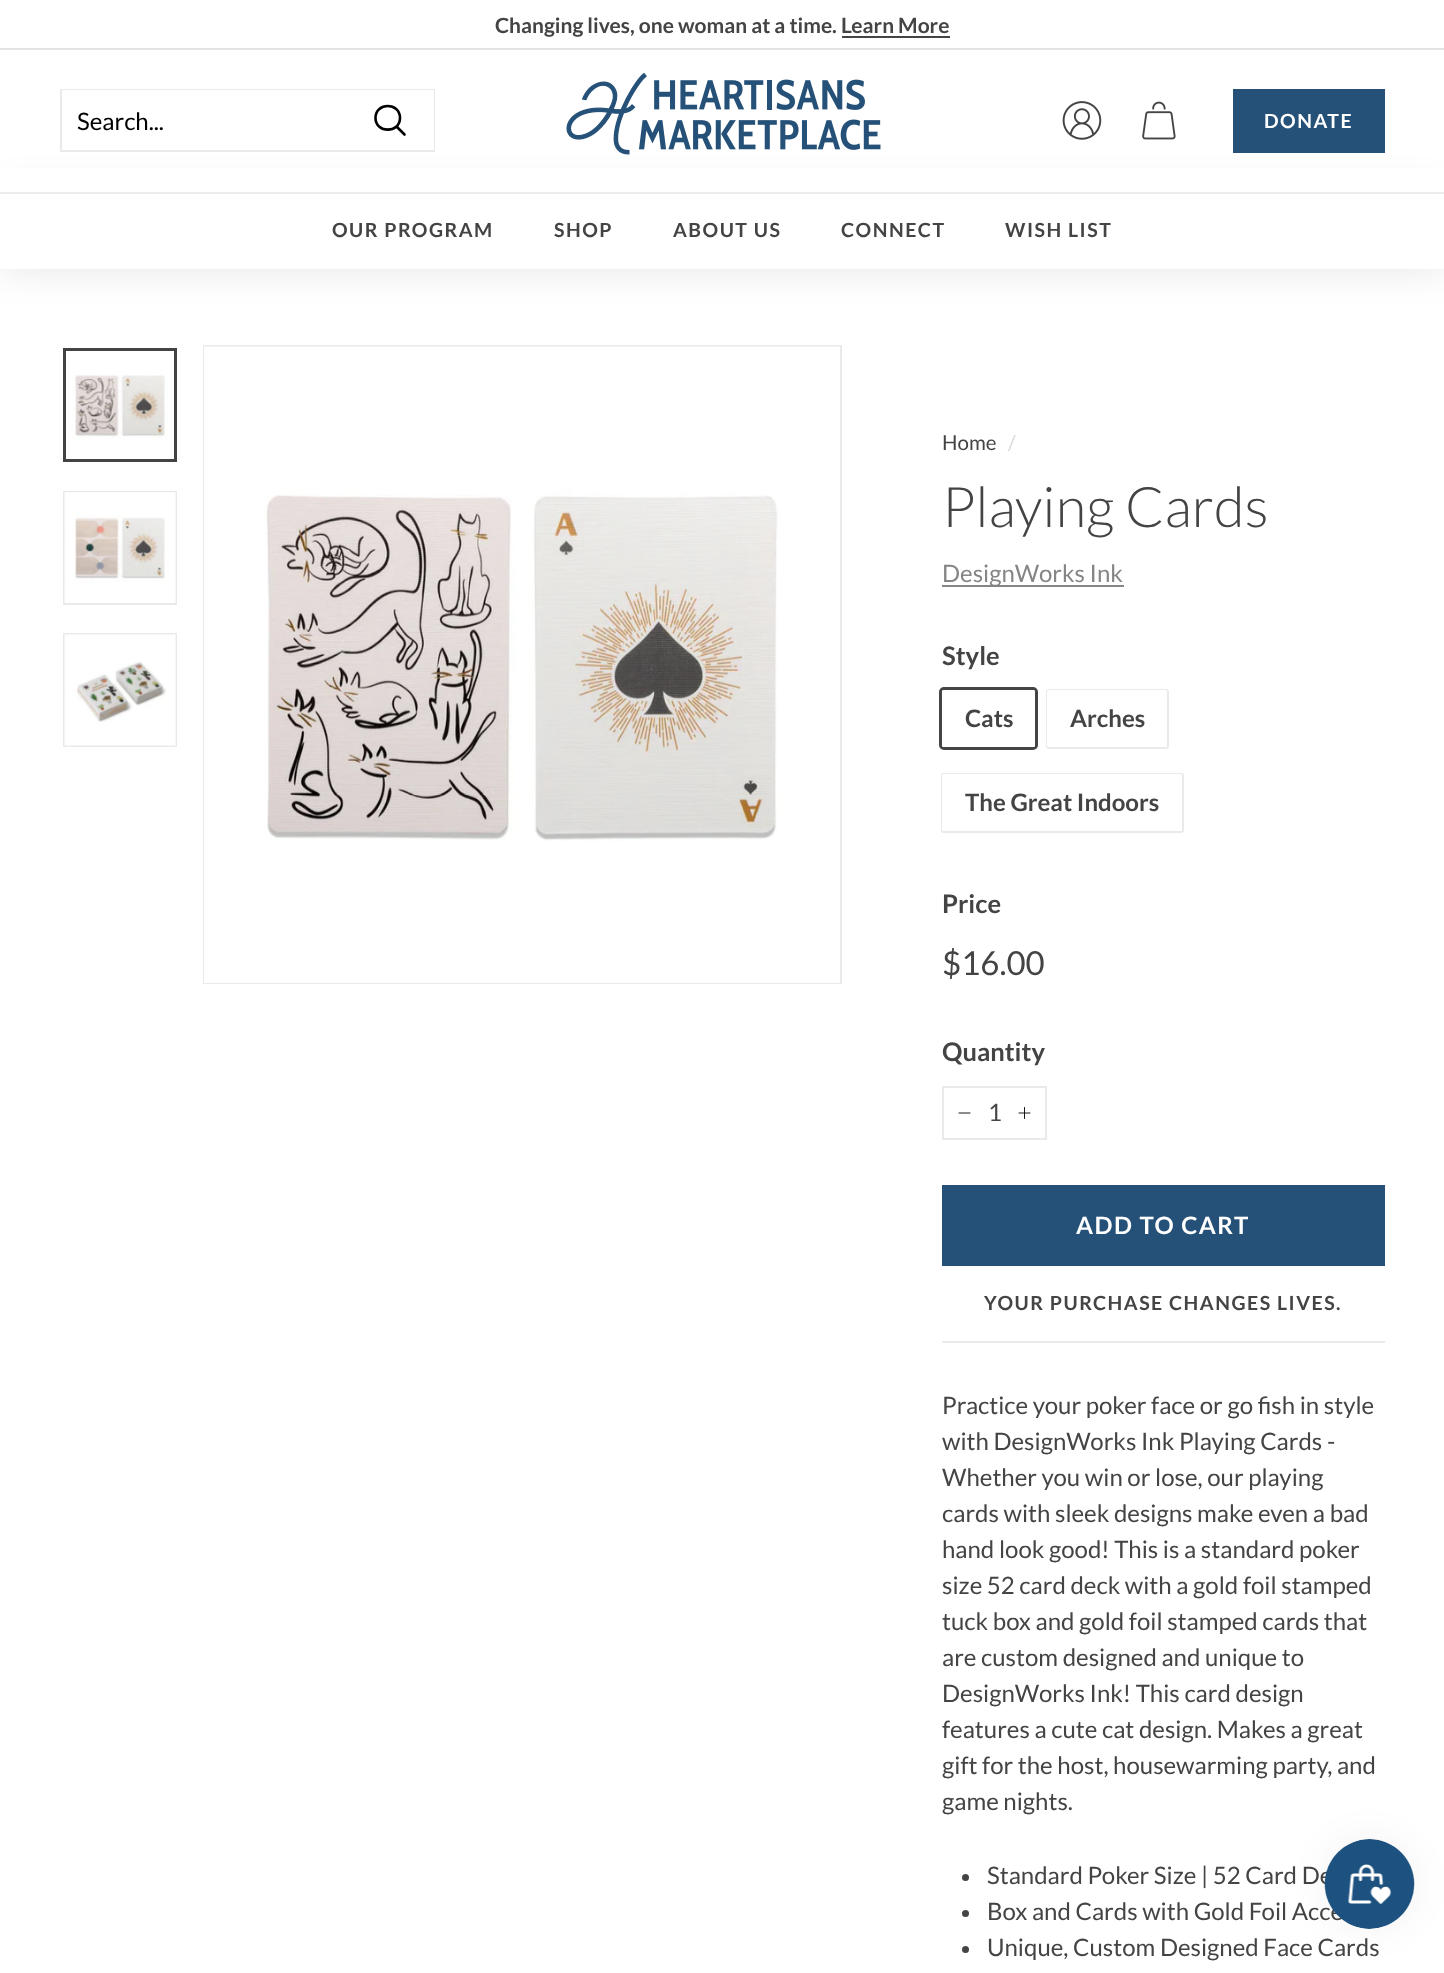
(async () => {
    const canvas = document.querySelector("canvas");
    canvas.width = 1444;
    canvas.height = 1973;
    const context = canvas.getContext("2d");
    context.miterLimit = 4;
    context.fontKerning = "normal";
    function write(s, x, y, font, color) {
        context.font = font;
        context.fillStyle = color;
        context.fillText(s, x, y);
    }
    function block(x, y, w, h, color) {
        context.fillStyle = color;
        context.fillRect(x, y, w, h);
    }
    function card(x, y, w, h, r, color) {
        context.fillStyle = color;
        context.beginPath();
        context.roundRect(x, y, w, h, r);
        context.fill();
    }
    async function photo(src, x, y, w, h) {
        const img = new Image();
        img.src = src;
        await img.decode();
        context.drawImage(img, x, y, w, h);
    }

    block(0, 0, 1444, 1973, "rgb(255, 255, 255)");
    write("Changing lives, one woman at a time. Learn More", 495, 33, "bold 21px Lato", "rgb(68, 68, 68)");
    block(842, 36, 108, 2, "rgb(68, 68, 68)");
    block(0, 48, 1444, 2, "rgb(227, 227, 227)");
    context.fillStyle = "rgba(0, 0, 0, 0.1)";
    context.filter = "blur(19px)";
    context.beginPath();
    context.rect(0, 192, 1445, 77);
    context.fill();
    context.filter = "none";
    block(0, 168, 1444, 24, "rgb(255, 255, 255)");
    context.strokeStyle = "rgb(234, 234, 234)";
    context.lineWidth = 2;
    context.strokeRect(61, 90, 373, 61);
    block(62, 90, 372, 60, "rgb(255, 255, 255)");
    write("Search...", 77, 130, "24px Lato", "rgb(0, 0, 0)");
    context.beginPath();
    context.moveTo(400, 118);
    context.bezierCurveTo(400, 133.5, 375.5, 133.5, 375.5, 118);
    context.bezierCurveTo(375.5, 102, 400, 102, 400, 118);
    context.closePath();
    context.moveTo(404.5, 134.5);
    context.lineTo(396.5, 126.5);
    context.strokeStyle = "rgb(0, 0, 0)";
    context.lineWidth = 2.6;
    context.lineCap = "round";
    context.lineJoin = "round";
    context.stroke();
    await photo("media/1.png", 566, 72, 315, 83);
    await photo("media/2.png", 1062, 101, 40, 39);
    await photo("media/3.png", 1142, 101, 34, 39);
    block(1233, 89, 152, 64, "rgb(37, 81, 120)");
    context.letterSpacing = "1.5px";
    write("DONATE", 1264, 128, "bold 19.5px Lato", "rgb(255, 255, 255)");
    block(0, 194, 1444, 75, "rgb(255, 255, 255)");
    block(0, 192, 1444, 2, "rgb(236, 236, 236)");
    write("OUR PROGRAM", 332, 237, "bold 19.5px Lato", "rgb(68, 68, 68)");
    write("SHOP", 554, 237, "bold 19.5px Lato", "rgb(68, 68, 68)");
    write("ABOUT US", 673, 237, "bold 19.5px Lato", "rgb(68, 68, 68)");
    write("CONNECT", 841, 237, "bold 19.5px Lato", "rgb(68, 68, 68)");
    write("WISH LIST", 1005, 237, "bold 19.5px Lato", "rgb(68, 68, 68)");
    await photo("media/4.png", 66, 351, 108, 108);
    context.strokeStyle = "rgb(68, 68, 68)";
    context.lineWidth = 3;
    context.lineJoin = "miter";
    context.strokeRect(64.5, 349.5, 111, 111);
    context.strokeStyle = "rgb(234, 234, 234)";
    context.lineWidth = 2;
    context.strokeRect(64, 492, 112, 112);
    await photo("media/5.png", 64, 492, 112, 111);
    context.strokeRect(64, 634, 112, 112);
    await photo("media/6.png", 64, 634, 112, 112);
    context.strokeRect(204, 346, 637, 637);
    block(204, 841, 636, 142, "rgb(255, 255, 255)");
    await photo("media/7.png", 204, 346, 636, 495);
    context.letterSpacing = "0px";
    write("Home", 942, 450, "20.5px Lato", "rgb(68, 68, 68)");
    write("/", 1008, 450, "20.5px Lato", "rgb(218, 218, 218)");
    write("Playing Cards", 942, 527, "300 56px Lato", "rgb(68, 68, 68)");
    block(942, 585, 182, 2, "rgb(133, 133, 133)");
    write("DesignWorks Ink", 942, 582, "24px Lato", "rgb(133, 133, 133)");
    write("Style", 942, 665, "bold 25.5px Lato", "rgb(68, 68, 68)");
    context.beginPath();
    context.roundRect(940.5, 688.5, 96, 60, 3.5);
    context.strokeStyle = "rgb(68, 68, 68)";
    context.lineWidth = 3;
    context.stroke();
    card(942, 690, 93, 57, 1.5, "rgb(255, 255, 255)");
    write("Cats", 965, 727, "bold 24px Lato", "rgb(68, 68, 68)");
    context.beginPath();
    context.roundRect(1047, 690, 121, 58, 2);
    context.strokeStyle = "rgb(234, 234, 234)";
    context.lineWidth = 2;
    context.stroke();
    card(1047, 690, 120, 57, 1.5, "rgb(255, 255, 255)");
    write("Arches", 1070, 727, "bold 24px Lato", "rgb(68, 68, 68)");
    context.beginPath();
    context.roundRect(942, 774, 241, 58, 2);
    context.stroke();
    card(942, 774, 240, 57, 1.5, "rgb(255, 255, 255)");
    write("The Great Indoors", 965, 811, "bold 24px Lato", "rgb(68, 68, 68)");
    write("Price", 942, 913, "bold 25.5px Lato", "rgb(68, 68, 68)");
    write("$16.00", 942, 975, "33px Lato", "rgb(68, 68, 68)");
    write("Quantity", 942, 1061, "bold 25.5px Lato", "rgb(68, 68, 68)");
    context.strokeRect(943, 1087, 103, 52);
    context.beginPath();
    context.moveTo(970, 1113);
    context.lineTo(959, 1113);
    context.strokeStyle = "rgb(0, 0, 0)";
    context.lineWidth = 0.9;
    context.lineJoin = "round";
    context.stroke();
    write("1", 988, 1121, "24px Lato", "rgb(68, 68, 68)");
    context.beginPath();
    context.moveTo(1024.5, 1107.5);
    context.lineTo(1024.5, 1118.5);
    context.moveTo(1030, 1113);
    context.lineTo(1019, 1113);
    context.stroke();
    block(942, 1185, 443, 81, "rgb(37, 81, 120)");
    context.letterSpacing = "1.5px";
    write("ADD TO CART", 1076, 1234, "bold 24px Lato", "rgb(255, 255, 255)");
    block(942, 1341, 443, 2, "rgb(234, 234, 234)");
    write("YOUR PURCHASE CHANGES LIVES.", 984, 1310, "bold 19.5px Lato", "rgb(68, 68, 68)");
    context.letterSpacing = "0px";
    write("Practice your poker face or go fish in style", 942, 1414, "24px Lato", "rgb(68, 68, 68)");
    write("with DesignWorks Ink Playing Cards -", 942, 1450, "24px Lato", "rgb(68, 68, 68)");
    write("Whether you win or lose, our playing", 942, 1486, "24px Lato", "rgb(68, 68, 68)");
    write("cards with sleek designs make even a bad", 942, 1522, "24px Lato", "rgb(68, 68, 68)");
    write("hand look good! This is a standard poker", 942, 1558, "24px Lato", "rgb(68, 68, 68)");
    write("size 52 card deck with a gold foil stamped", 942, 1594, "24px Lato", "rgb(68, 68, 68)");
    write("tuck box and gold foil stamped cards that", 942, 1630, "24px Lato", "rgb(68, 68, 68)");
    write("are custom designed and unique to", 942, 1666, "24px Lato", "rgb(68, 68, 68)");
    write("DesignWorks Ink! This card design", 942, 1702, "24px Lato", "rgb(68, 68, 68)");
    write("features a cute cat design. Makes a great", 942, 1738, "24px Lato", "rgb(68, 68, 68)");
    write("gift for the host, housewarming party, and", 942, 1774, "24px Lato", "rgb(68, 68, 68)");
    write("game nights.", 942, 1810, "24px Lato", "rgb(68, 68, 68)");
    context.beginPath();
    context.arc(965.5, 1877.5, 3.5, 0, Math.PI * 2);
    context.fill();
    write("Standard Poker Size | 52 Card De", 987, 1884, "24px Lato", "rgb(68, 68, 68)");
    context.beginPath();
    context.arc(965.5, 1913.5, 3.5, 0, Math.PI * 2);
    context.fill();
    write("Box and Cards with Gold Foil Acce", 987, 1920, "24px Lato", "rgb(68, 68, 68)");
    context.beginPath();
    context.arc(965.5, 1949.5, 3.5, 0, Math.PI * 2);
    context.fill();
    write("Unique, Custom Designed Face Cards", 987, 1956, "24px Lato", "rgb(68, 68, 68)");
    context.fillStyle = "rgba(0, 0, 0, 0.05)";
    context.filter = "blur(19px)";
    context.beginPath();
    context.roundRect(1325, 1839, 90, 90, 45);
    context.fill();
    context.filter = "none";
    await photo("media/8.png", 1324, 1839, 91, 90);
})();
